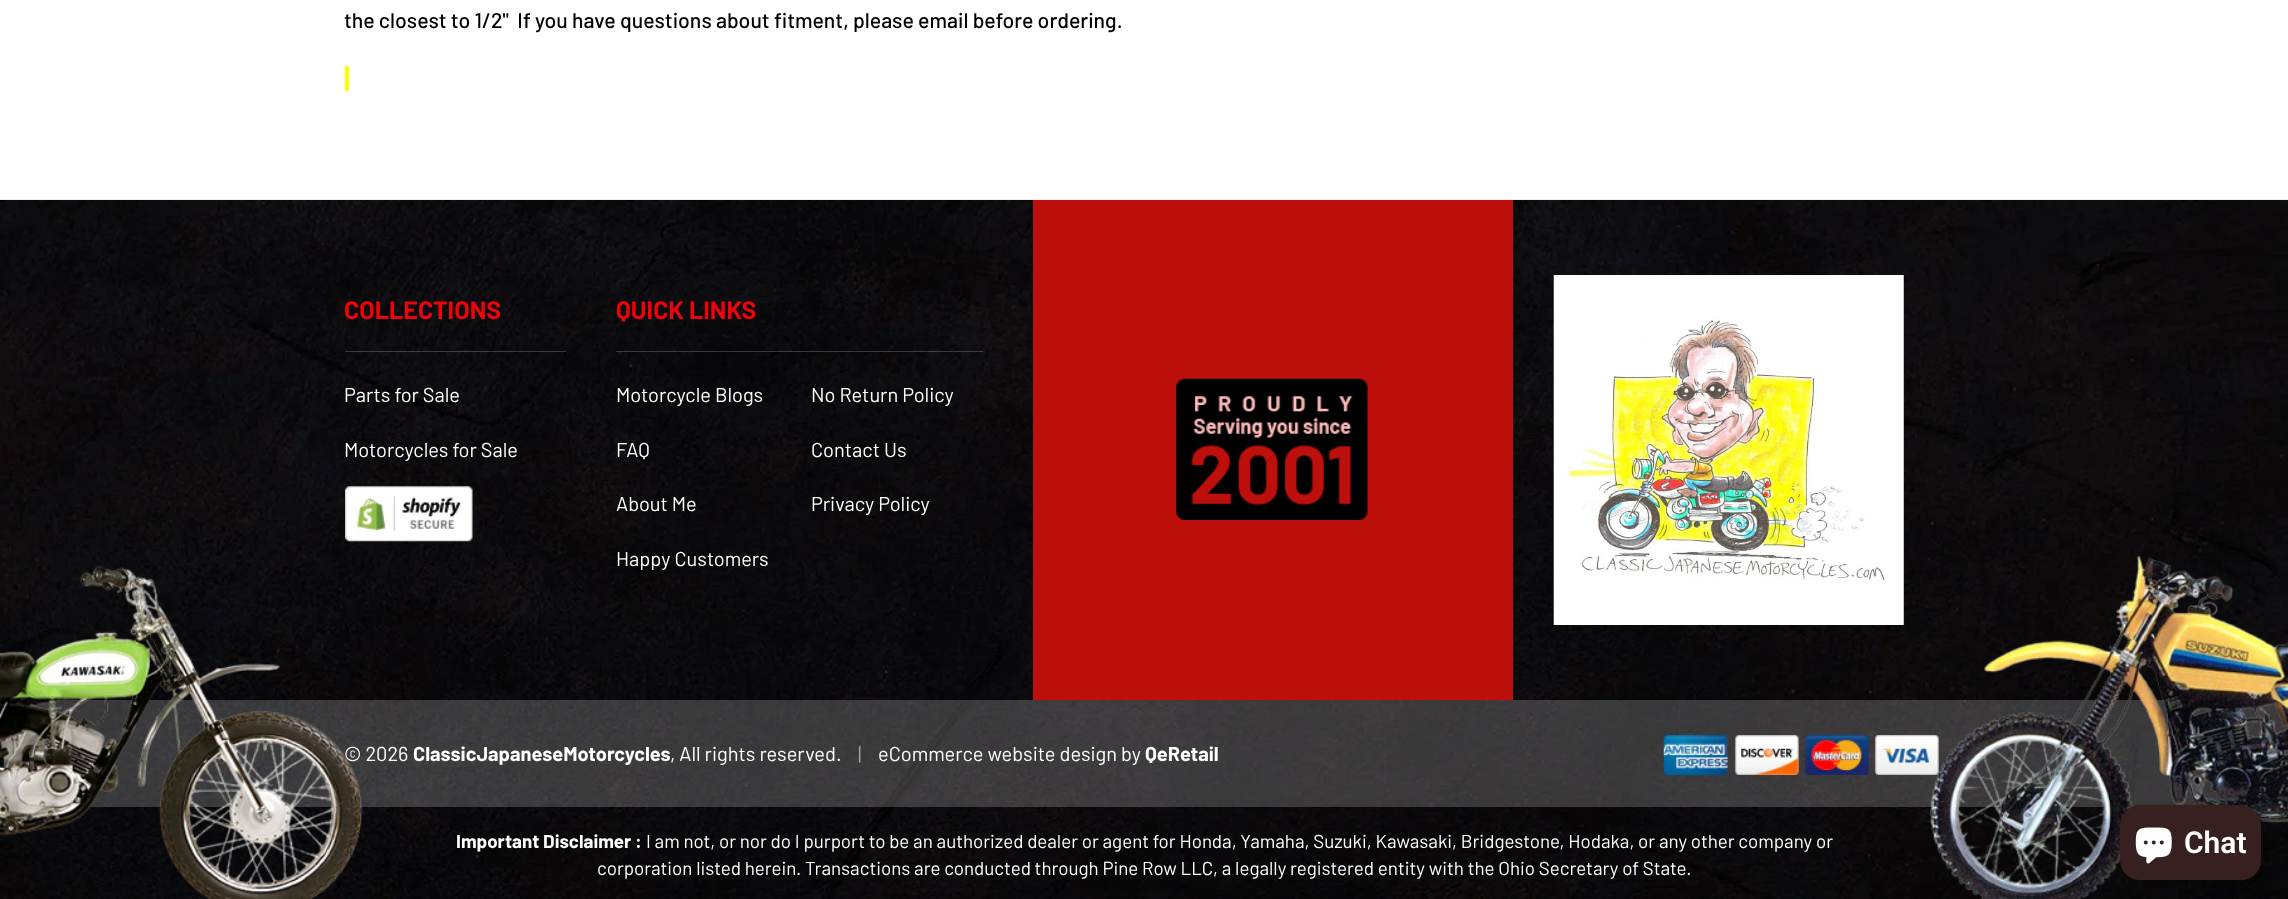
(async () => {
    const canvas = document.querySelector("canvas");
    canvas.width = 2288;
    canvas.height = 899;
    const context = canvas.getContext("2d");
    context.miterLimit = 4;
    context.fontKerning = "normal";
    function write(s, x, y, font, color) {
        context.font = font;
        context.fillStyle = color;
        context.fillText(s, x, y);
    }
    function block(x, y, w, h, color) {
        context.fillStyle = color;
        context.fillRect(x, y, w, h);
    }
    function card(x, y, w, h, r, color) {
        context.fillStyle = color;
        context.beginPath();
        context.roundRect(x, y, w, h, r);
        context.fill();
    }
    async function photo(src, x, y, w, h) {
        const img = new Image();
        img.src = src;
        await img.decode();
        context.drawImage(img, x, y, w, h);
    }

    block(0, 0, 2288, 899, "rgb(255, 255, 255)");
    write("the closest to 1/2\"  If you have questions about fitment, please email before ordering.", 344, 28, "500 21.25px Barlow", "rgb(0, 0, 0)");
    block(345, 66, 4, 25, "rgb(255, 255, 0)");
    await photo("media/1.png", 0, 200, 2288, 699);
    block(0, 199, 2288, 1, "rgb(236, 236, 236)");
    block(345, 351, 221, 1, "rgba(255, 255, 255, 0.2)");
    write("COLLECTIONS", 344, 319, "bold 25px Barlow", "rgb(237, 4, 10)");
    write("Parts for Sale", 344, 402, "20px Barlow", "rgb(255, 255, 255)");
    write("Motorcycles for Sale", 344, 457, "20px Barlow", "rgb(255, 255, 255)");
    await photo("media/2.png", 345, 486, 128, 56);
    block(616, 351, 367, 1, "rgba(255, 255, 255, 0.2)");
    write("QUICK LINKS", 616, 319, "bold 25px Barlow", "rgb(237, 4, 10)");
    write("Motorcycle Blogs", 616, 402, "20px Barlow", "rgb(255, 255, 255)");
    write("No Return Policy", 811, 402, "20px Barlow", "rgb(255, 255, 255)");
    write("FAQ", 616, 457, "20px Barlow", "rgb(255, 255, 255)");
    write("Contact Us", 811, 457, "20px Barlow", "rgb(255, 255, 255)");
    write("About Me", 616, 511, "20px Barlow", "rgb(255, 255, 255)");
    write("Privacy Policy", 811, 511, "20px Barlow", "rgb(255, 255, 255)");
    write("Happy Customers", 616, 566, "20px Barlow", "rgb(255, 255, 255)");
    block(1033, 200, 480, 500, "rgb(189, 16, 12)");
    await photo("media/3.png", 1176, 378, 192, 142);
    await photo("media/4.png", 1553, 275, 351, 350);
    block(0, 700, 2288, 106, "rgba(255, 255, 255, 0.2)");
    write("© 2026", 344, 761, "20px Barlow", "rgb(255, 255, 255)");
    block(88, 806, 2046, 1, "rgba(255, 255, 255, 0.2)");
    await photo("media/5.png", 0, 566, 363, 333);
    write("ClassicJapaneseMotorcycles", 413, 761, "bold 20px Barlow", "rgb(255, 255, 255)");
    write(", All rights reserved.", 670, 761, "20px Barlow", "rgb(255, 255, 255)");
    write("|", 858, 761, "20px Barlow", "rgb(163, 163, 163)");
    write("eCommerce website design by", 878, 761, "20px Barlow", "rgb(255, 255, 255)");
    write("QeRetail", 1145, 761, "bold 20px Barlow", "rgb(255, 255, 255)");
    await photo("media/6.png", 1663, 735, 276, 40);
    await photo("media/7.png", 1930, 556, 358, 343);
    write("Important Disclaimer :", 456, 848, "bold 18.75px Barlow", "rgb(255, 255, 255)");
    write("I am not, or nor do I purport to be an authorized dealer or agent for Honda, Yamaha, Suzuki, Kawasaki, Bridgestone, Hodaka, or any other company or", 646, 848, "18.75px Barlow", "rgb(255, 255, 255)");
    write("corporation listed herein. Transactions are conducted through Pine Row LLC, a legally registered entity with the Ohio Secretary of State.", 597, 875, "18.75px Barlow", "rgb(255, 255, 255)");
    context.fillStyle = "rgba(0, 0, 0, 0.15)";
    context.filter = "blur(3px)";
    context.beginPath();
    context.roundRect(2120, 805, 141, 75, 20);
    context.fill();
    context.filter = "none";
    card(2120, 805, 141, 75, 20, "rgb(54, 32, 32)");
    await photo("media/8.png", 2135, 827, 37, 37);
    write("Chat", 2184, 853, "600 30px Roboto", "rgb(255, 255, 255)");
})();
